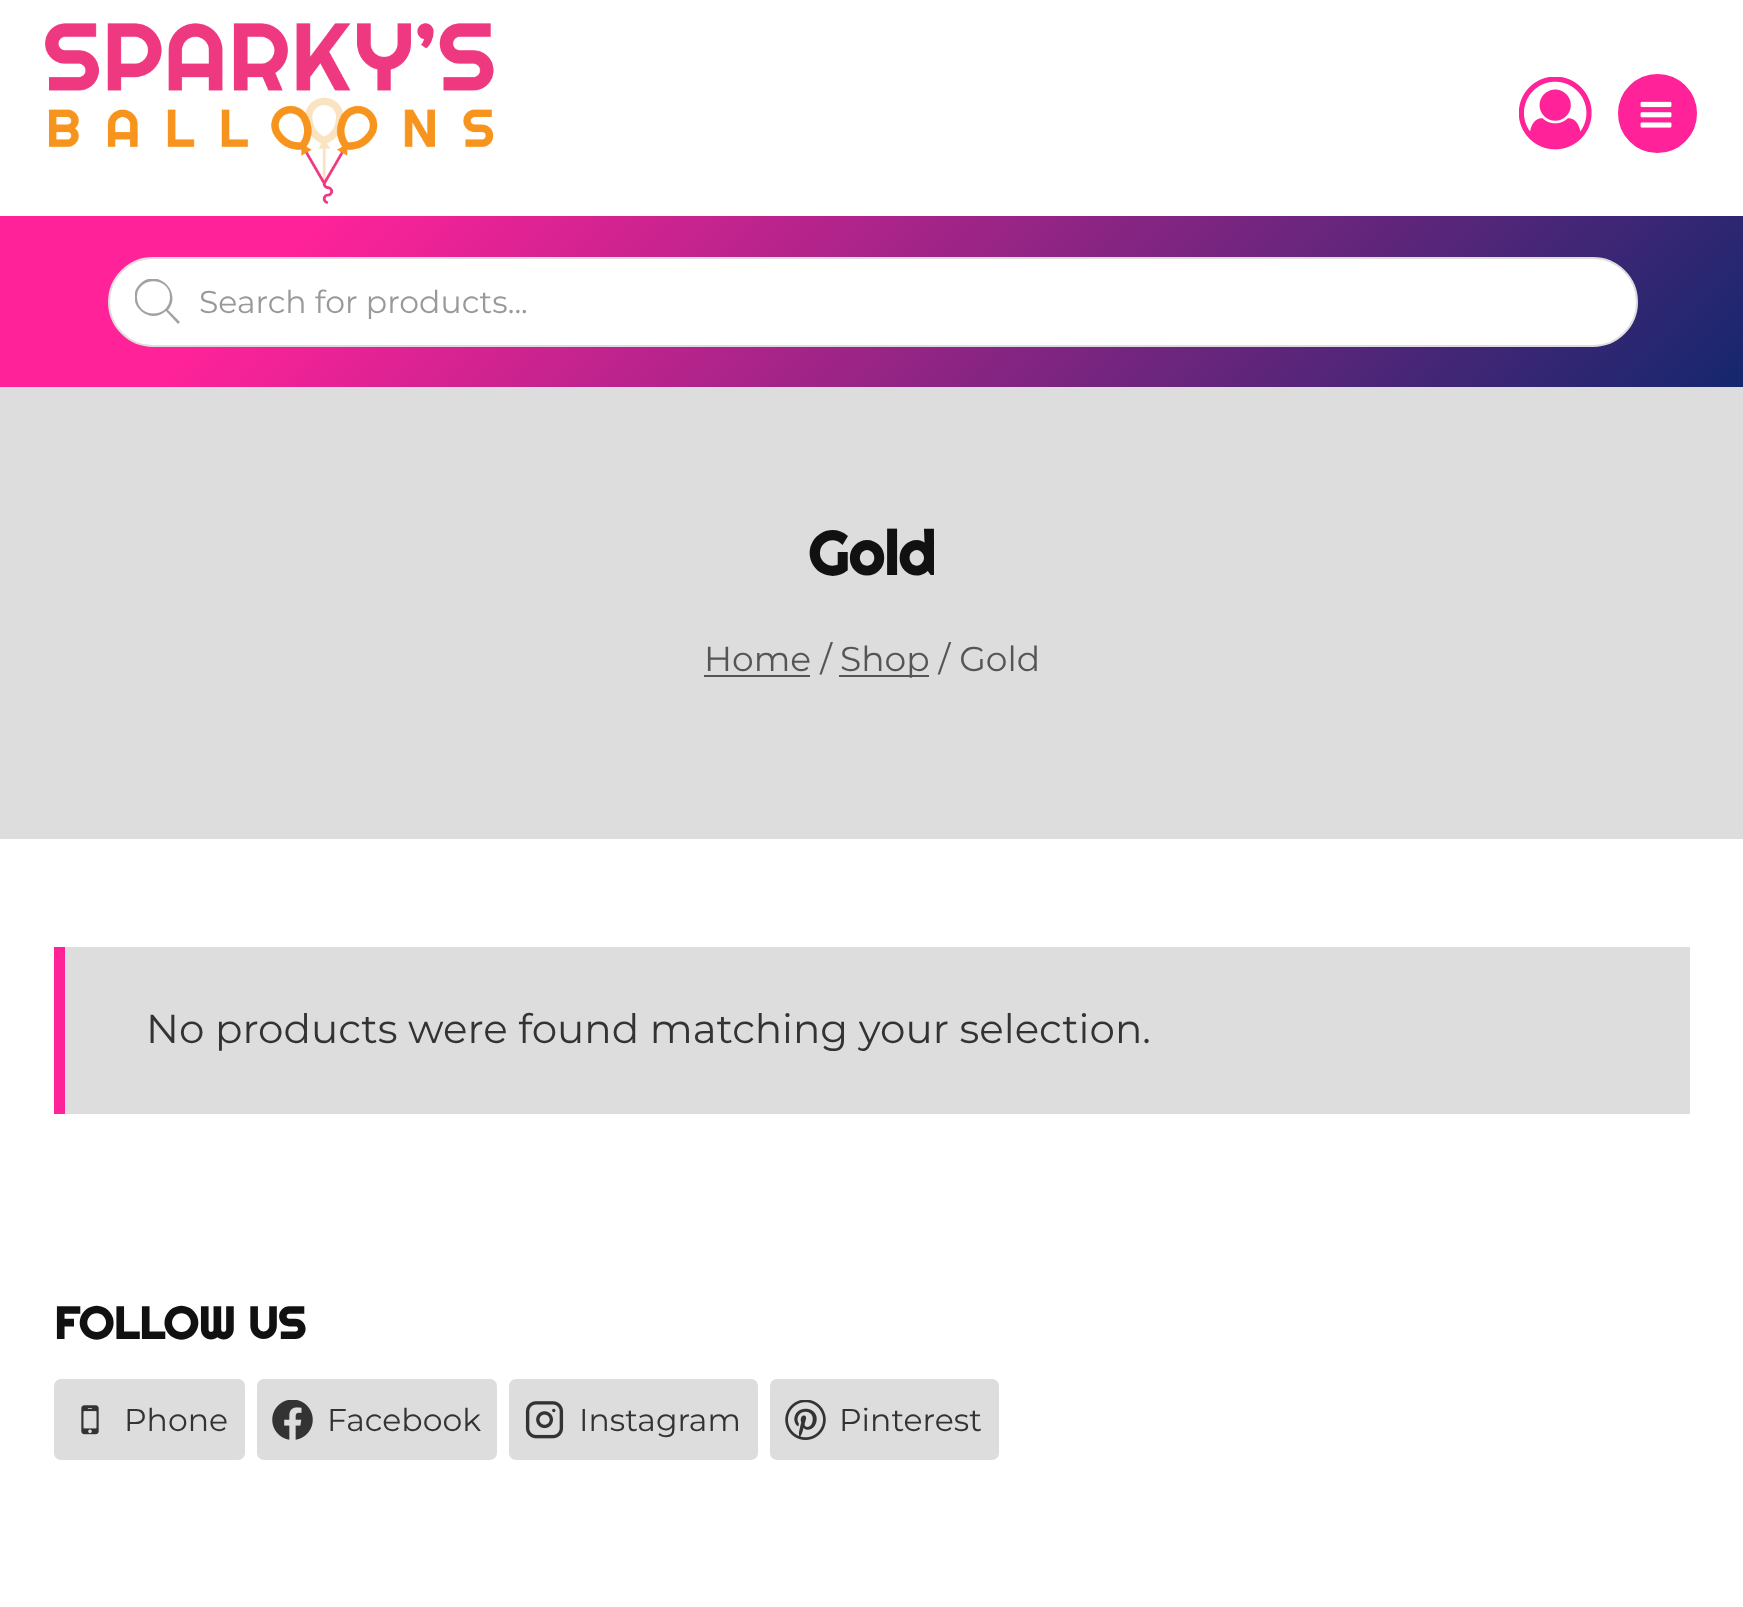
(async () => {
    const canvas = document.querySelector("canvas");
    canvas.width = 1743;
    canvas.height = 1607;
    const context = canvas.getContext("2d");
    context.miterLimit = 4;
    context.fontKerning = "normal";
    function write(s, x, y, font, color) {
        context.font = font;
        context.fillStyle = color;
        context.fillText(s, x, y);
    }
    function block(x, y, w, h, color) {
        context.fillStyle = color;
        context.fillRect(x, y, w, h);
    }
    function card(x, y, w, h, r, color) {
        context.fillStyle = color;
        context.beginPath();
        context.roundRect(x, y, w, h, r);
        context.fill();
    }
    async function photo(src, x, y, w, h) {
        const img = new Image();
        img.src = src;
        await img.decode();
        context.drawImage(img, x, y, w, h);
    }
    let gradient;

    block(0, 0, 1743, 1607, "rgb(255, 255, 255)");
    await photo("media/1.png", 45, 23, 449, 181);
    await photo("media/2.png", 1519, 77, 73, 73);
    context.fillStyle = "rgb(255, 34, 153)";
    context.beginPath();
    context.arc(1657.5, 113.5, 40.5, 0, Math.PI * 2);
    context.fill();
    context.strokeStyle = "rgb(255, 255, 255)";
    context.lineWidth = 2;
    context.stroke();
    await photo("media/3.png", 1640, 101, 32, 27);
    gradient = context.createLinearGradient(393, -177, 1351, 780);
    gradient.addColorStop(0.17, "rgb(255, 34, 153)");
    gradient.addColorStop(1, "rgb(20, 39, 109)");
    context.fillStyle = gradient;
    context.fillRect(0, 216, 1743, 171);
    context.fillStyle = "rgb(255, 255, 255)";
    context.beginPath();
    context.roundRect(109, 258, 1528, 88, 44);
    context.fill();
    context.strokeStyle = "rgb(221, 221, 221)";
    context.stroke();
    context.save();
    context.beginPath();
    context.rect(135, 279, 45, 45);
    context.clip();
    context.fillStyle = "rgb(162, 162, 162)";
    context.beginPath();
    context.moveTo(180, 322);
    context.lineTo(168, 310);
    context.bezierCurveTo(183, 292, 157, 267, 140, 284);
    context.bezierCurveTo(123, 301, 148, 327, 166, 311);
    context.lineTo(178, 324);
    context.closePath();
    context.moveTo(137, 297);
    context.bezierCurveTo(137, 276, 170, 276, 170, 297);
    context.bezierCurveTo(170, 319, 137, 319, 137, 297);
    context.closePath();
    context.fill();
    context.restore();
    write("Search for products...", 199, 313, "100 31.5px Montserrat", "rgb(153, 153, 153)");
    block(0, 387, 1743, 452, "rgb(221, 221, 221)");
    write("Gold", 808, 575, "bold 61px Righteous", "rgb(17, 17, 17)");
    write("Home /", 704, 671, "100 34.5px Montserrat", "rgb(85, 85, 85)");
    block(704, 675, 106, 2, "rgb(85, 85, 85)");
    block(839, 675, 90, 2, "rgb(85, 85, 85)");
    write("Shop / Gold", 840, 671, "100 34.5px Montserrat", "rgb(85, 85, 85)");
    block(65, 947, 1625, 167, "rgb(221, 221, 221)");
    block(54, 947, 11, 167, "rgb(255, 34, 153)");
    write("No products were found matching your selection.", 146, 1043, "100 40.5px Montserrat", "rgb(51, 51, 51)");
    write("FOLLOW US", 54, 1339, "bold 45px Righteous", "rgb(17, 17, 17)");
    card(54, 1379, 191, 81, 7, "rgb(221, 221, 221)");
    await photo("media/4.png", 81, 1405, 18, 30);
    write("Phone", 124, 1431, "100 31.5px Montserrat", "rgb(51, 51, 51)");
    card(257, 1379, 240, 81, 7, "rgb(221, 221, 221)");
    await photo("media/5.png", 272, 1400, 41, 40);
    write("Facebook", 327, 1431, "100 31.5px Montserrat", "rgb(51, 51, 51)");
    card(509, 1379, 249, 81, 7, "rgb(221, 221, 221)");
    await photo("media/6.png", 525, 1401, 39, 38);
    write("Instagram", 579, 1431, "100 31.5px Montserrat", "rgb(51, 51, 51)");
    card(770, 1379, 229, 81, 7, "rgb(221, 221, 221)");
    await photo("media/7.png", 785, 1400, 41, 40);
    write("Pinterest", 839, 1431, "100 31.5px Montserrat", "rgb(51, 51, 51)");
})();
